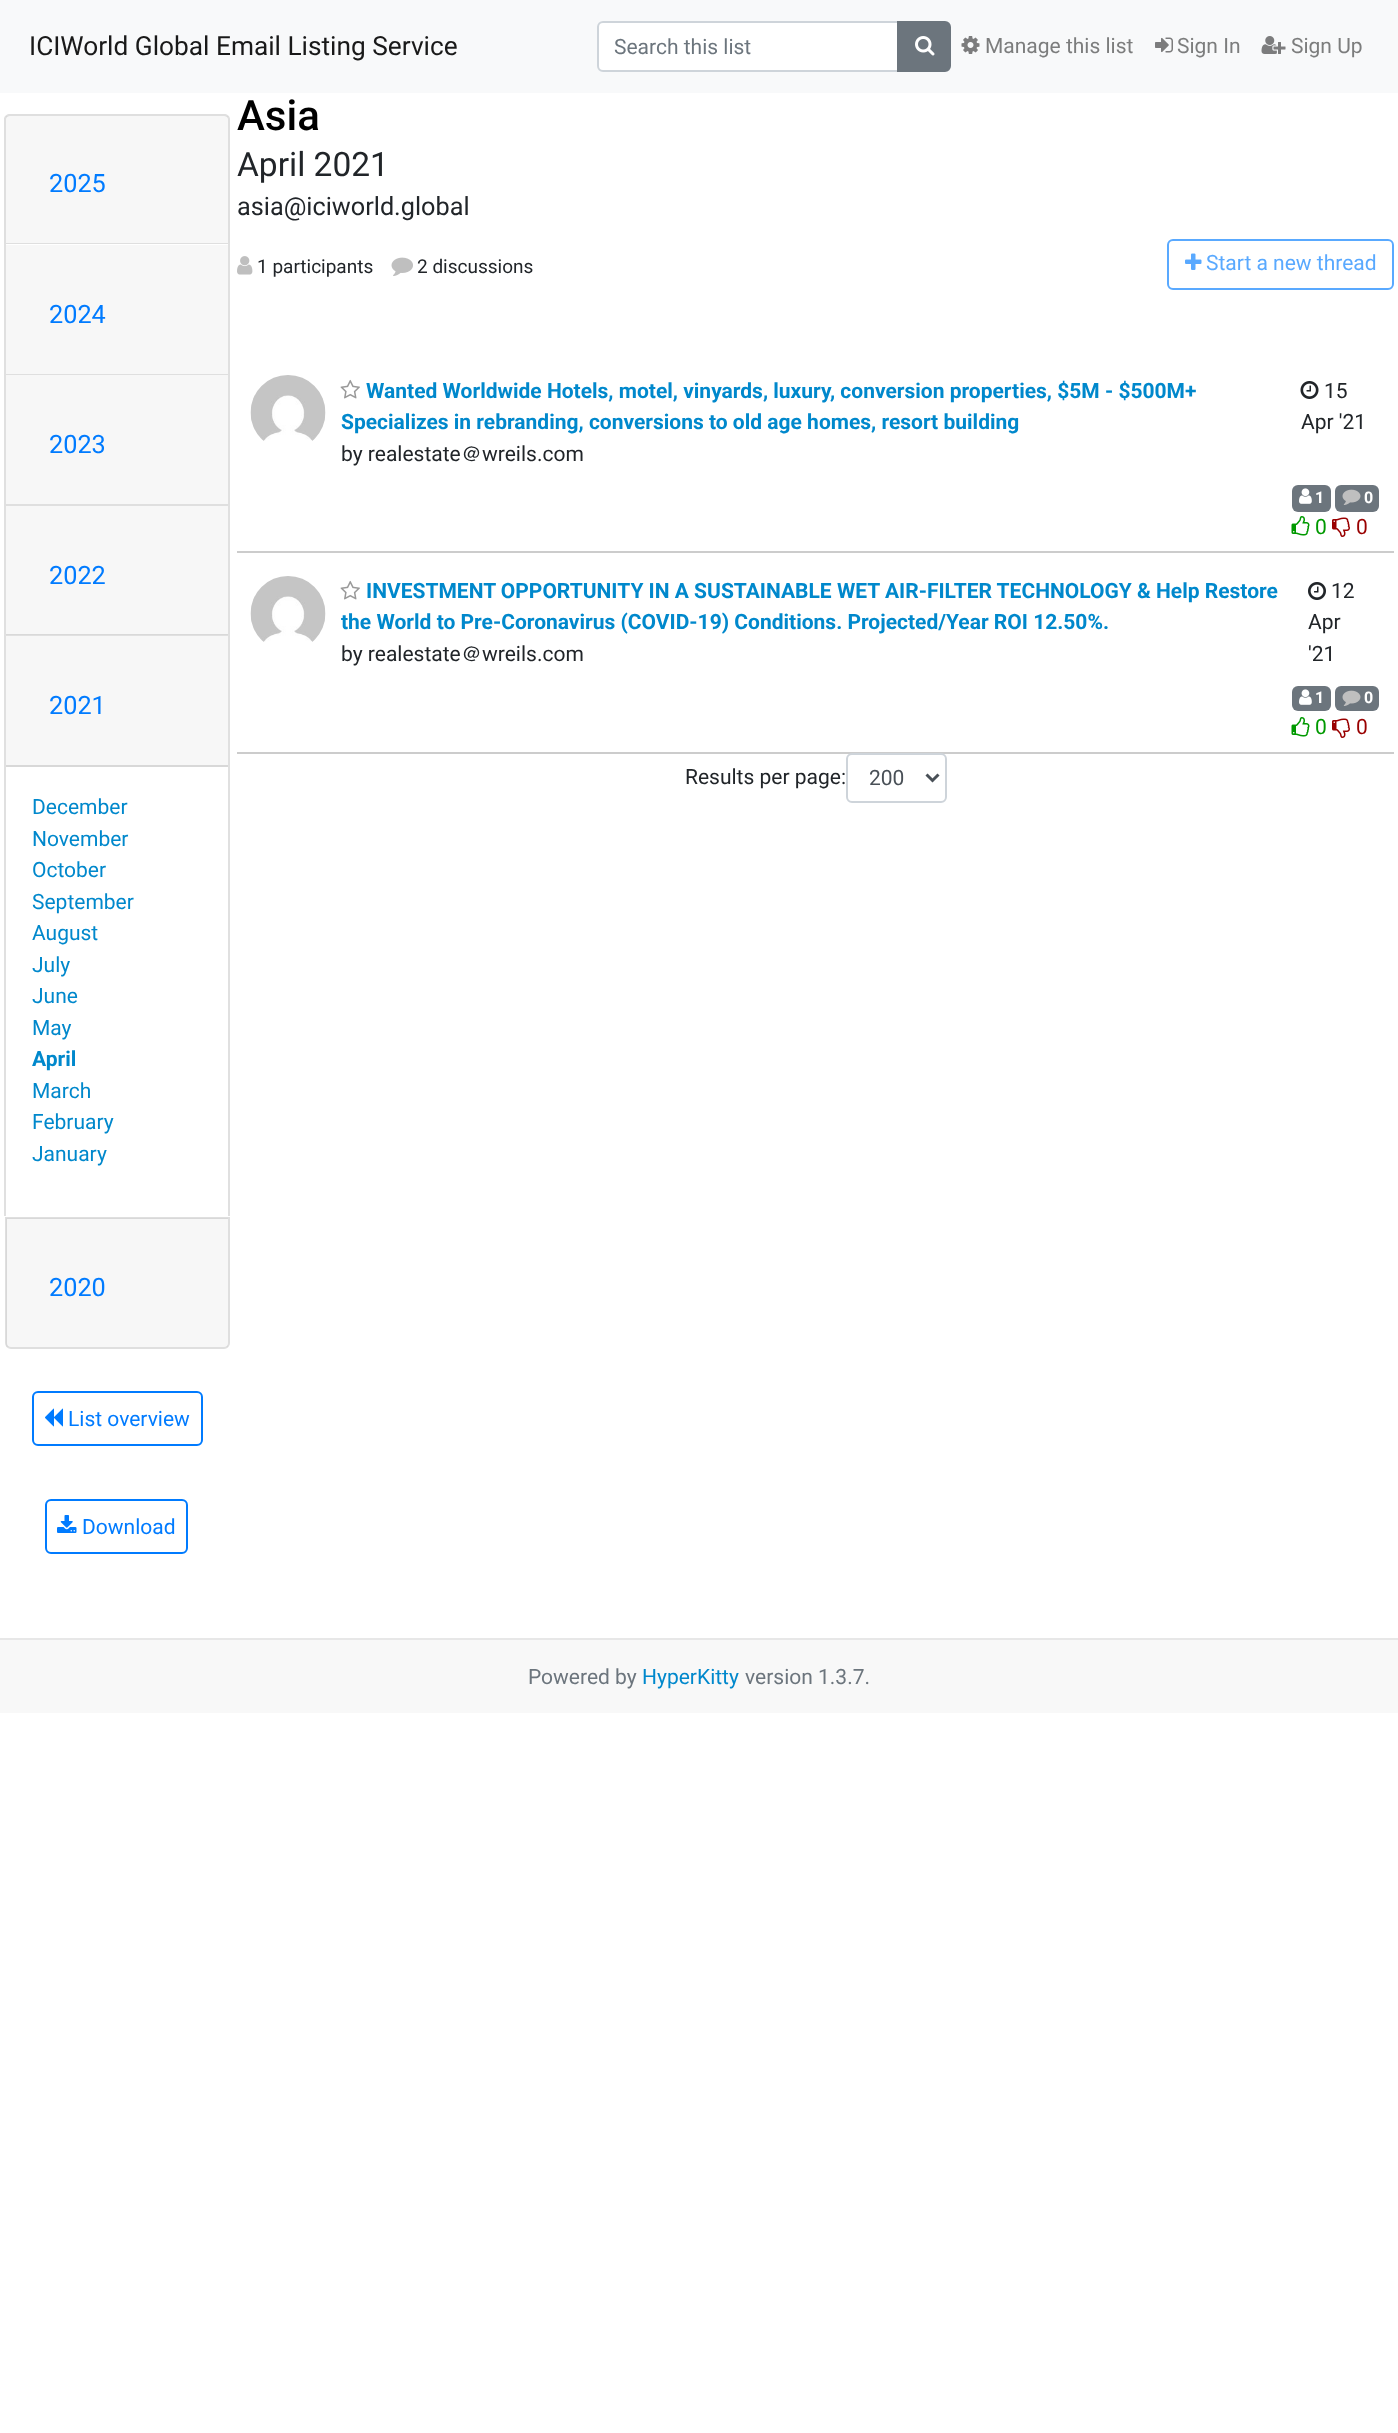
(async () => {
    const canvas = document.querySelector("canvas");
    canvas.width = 1398;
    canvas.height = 2433;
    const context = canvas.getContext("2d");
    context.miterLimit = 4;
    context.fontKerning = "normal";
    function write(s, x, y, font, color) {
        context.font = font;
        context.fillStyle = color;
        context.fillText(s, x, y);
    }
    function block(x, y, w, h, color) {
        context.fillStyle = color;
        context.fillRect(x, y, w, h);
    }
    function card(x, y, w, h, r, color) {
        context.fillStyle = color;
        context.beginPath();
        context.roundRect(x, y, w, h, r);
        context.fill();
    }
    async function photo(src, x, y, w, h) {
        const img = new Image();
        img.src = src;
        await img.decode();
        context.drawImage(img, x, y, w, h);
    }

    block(0, 0, 1398, 2433, "rgb(255, 255, 255)");
    block(0, 0, 1398, 93, "rgb(248, 249, 250)");
    write("ICIWorld Global Email Listing Service", 29, 55, "26.25px Roboto", "rgb(25, 25, 25)");
    context.fillStyle = "rgb(255, 255, 255)";
    context.beginPath();
    context.roundRect(598, 22, 300, 49, [5, 0, 0, 5]);
    context.fill();
    context.strokeStyle = "rgb(206, 212, 218)";
    context.lineWidth = 2;
    context.stroke();
    write("Search this list", 614, 54, "21px Roboto", "rgb(108, 117, 125)");
    context.beginPath();
    context.roundRect(898, 22, 52, 49, [0, 5, 5, 0]);
    context.fill();
    context.strokeStyle = "rgb(108, 117, 125)";
    context.stroke();
    await photo("media/1.png", 915, 36, 20, 20);
    await photo("media/2.png", 961, 36, 19, 18);
    write("Manage this list", 985, 53, "21px Roboto", "rgb(124, 125, 125)");
    await photo("media/3.png", 1155, 37, 18, 16);
    write("Sign In", 1177, 53, "21px Roboto", "rgb(124, 125, 125)");
    await photo("media/4.png", 1261, 36, 25, 18);
    write("Sign Up", 1291, 53, "21px Roboto", "rgb(124, 125, 125)");
    context.fillStyle = "rgb(223, 223, 223)";
    context.beginPath();
    context.moveTo(10, 114);
    context.lineTo(224, 114);
    context.bezierCurveTo(227, 114, 230, 116, 230, 119);
    context.lineTo(230, 243);
    context.lineTo(4, 243);
    context.lineTo(4, 119);
    context.bezierCurveTo(4, 116, 7, 114, 10, 114);
    context.closePath();
    context.moveTo(10, 116);
    context.lineTo(224, 116);
    context.bezierCurveTo(226, 116, 228, 117, 228, 119);
    context.lineTo(228, 243);
    context.lineTo(6, 243);
    context.lineTo(6, 119);
    context.bezierCurveTo(6, 117, 8, 116, 10, 116);
    context.closePath();
    context.fill("evenodd");
    block(6, 116, 222, 127, "rgba(0, 0, 0, 0.03)");
    write("2025", 49, 192, "25.25px Roboto", "rgb(0, 123, 255)");
    context.fillStyle = "rgb(223, 223, 223)";
    context.beginPath();
    context.moveTo(4, 243);
    context.lineTo(230, 243);
    context.lineTo(228, 244);
    context.lineTo(6, 244);
    context.closePath();
    context.fill();
    context.fillStyle = "rgba(0, 0, 0, 0.12)";
    context.beginPath();
    context.moveTo(230, 243);
    context.lineTo(230, 374);
    context.lineTo(228, 374);
    context.lineTo(228, 244);
    context.closePath();
    context.fill();
    context.beginPath();
    context.moveTo(4, 374);
    context.lineTo(4, 243);
    context.lineTo(6, 244);
    context.lineTo(6, 374);
    context.closePath();
    context.fill();
    block(6, 245, 222, 129, "rgb(247, 247, 247)");
    write("2024", 49, 323, "25.25px Roboto", "rgb(0, 123, 255)");
    context.fillStyle = "rgb(223, 223, 223)";
    context.beginPath();
    context.moveTo(4, 374);
    context.lineTo(230, 374);
    context.lineTo(228, 375);
    context.lineTo(6, 375);
    context.closePath();
    context.fill();
    context.fillStyle = "rgba(0, 0, 0, 0.12)";
    context.beginPath();
    context.moveTo(230, 374);
    context.lineTo(230, 504);
    context.lineTo(228, 504);
    context.lineTo(228, 375);
    context.closePath();
    context.fill();
    context.beginPath();
    context.moveTo(4, 504);
    context.lineTo(4, 374);
    context.lineTo(6, 375);
    context.lineTo(6, 504);
    context.closePath();
    context.fill();
    block(6, 375, 222, 129, "rgb(247, 247, 247)");
    write("2023", 49, 453, "25.25px Roboto", "rgb(0, 123, 255)");
    context.fillStyle = "rgb(223, 223, 223)";
    context.beginPath();
    context.moveTo(4, 504);
    context.lineTo(230, 504);
    context.lineTo(228, 506);
    context.lineTo(6, 506);
    context.closePath();
    context.fill();
    context.fillStyle = "rgba(0, 0, 0, 0.12)";
    context.beginPath();
    context.moveTo(230, 504);
    context.lineTo(230, 634);
    context.lineTo(228, 634);
    context.lineTo(228, 506);
    context.closePath();
    context.fill();
    context.beginPath();
    context.moveTo(4, 634);
    context.lineTo(4, 504);
    context.lineTo(6, 506);
    context.lineTo(6, 634);
    context.closePath();
    context.fill();
    block(6, 506, 222, 129, "rgb(247, 247, 247)");
    write("2022", 49, 584, "25.25px Roboto", "rgb(0, 123, 255)");
    context.fillStyle = "rgba(0, 0, 0, 0.12)";
    context.beginPath();
    context.moveTo(4, 634);
    context.lineTo(230, 634);
    context.lineTo(228, 636);
    context.lineTo(6, 636);
    context.closePath();
    context.fill();
    context.beginPath();
    context.moveTo(230, 634);
    context.lineTo(230, 1216);
    context.lineTo(228, 1216);
    context.lineTo(228, 636);
    context.closePath();
    context.fill();
    context.beginPath();
    context.moveTo(4, 1216);
    context.lineTo(4, 634);
    context.lineTo(6, 636);
    context.lineTo(6, 1216);
    context.closePath();
    context.fill();
    block(6, 636, 222, 129, "rgb(247, 247, 247)");
    block(6, 765, 222, 2, "rgb(216, 216, 216)");
    write("2021", 49, 714, "25.25px Roboto", "rgb(0, 123, 255)");
    write("December", 32, 814, "21px Roboto", "rgb(0, 136, 204)");
    write("November", 32, 846, "21px Roboto", "rgb(0, 136, 204)");
    write("October", 32, 877, "21px Roboto", "rgb(0, 136, 204)");
    write("September", 32, 909, "21px Roboto", "rgb(0, 136, 204)");
    write("August", 32, 940, "21px Roboto", "rgb(0, 136, 204)");
    write("July", 32, 972, "21px Roboto", "rgb(0, 136, 204)");
    write("June", 32, 1003, "21px Roboto", "rgb(0, 136, 204)");
    write("May", 32, 1035, "21px Roboto", "rgb(0, 136, 204)");
    write("April", 32, 1066, "bold 21px Roboto", "rgb(0, 136, 204)");
    write("March", 32, 1098, "21px Roboto", "rgb(0, 136, 204)");
    write("February", 32, 1129, "21px Roboto", "rgb(0, 136, 204)");
    write("January", 32, 1161, "21px Roboto", "rgb(0, 136, 204)");
    context.beginPath();
    context.roundRect(6, 1218, 223, 130, [0, 0, 5, 5]);
    context.strokeStyle = "rgb(223, 223, 223)";
    context.stroke();
    block(6, 1218, 222, 129, "rgba(0, 0, 0, 0.03)");
    write("2020", 49, 1296, "25.25px Roboto", "rgb(0, 123, 255)");
    context.beginPath();
    context.roundRect(33, 1392, 169, 53, 5);
    context.strokeStyle = "rgb(0, 123, 255)";
    context.stroke();
    await photo("media/5.png", 45, 1408, 18, 19);
    write("List overview", 68, 1426, "21px Roboto", "rgb(0, 123, 255)");
    context.beginPath();
    context.roundRect(46, 1500, 141, 53, 5);
    context.stroke();
    await photo("media/6.png", 57, 1515, 20, 18);
    write("Download", 82, 1534, "21px Roboto", "rgb(0, 123, 255)");
    write("Asia", 237, 130, "500 42px Roboto", "rgb(0, 0, 0)");
    write("April 2021", 237, 176, "33.5px Roboto", "rgb(33, 37, 41)");
    write("asia@iciworld.global", 237, 215, "25.25px Roboto", "rgb(33, 37, 41)");
    await photo("media/7.png", 237, 256, 16, 19);
    write("1 participants", 257, 273, "19px Roboto", "rgb(33, 37, 41)");
    await photo("media/8.png", 391, 257, 22, 19);
    write("2 discussions", 417, 273, "19px Roboto", "rgb(33, 37, 41)");
    context.beginPath();
    context.roundRect(1168, 240, 225, 49, 5);
    context.strokeStyle = "rgb(89, 169, 255)";
    context.stroke();
    await photo("media/9.png", 1185, 253, 17, 17);
    write("Start a new thread", 1206, 270, "21px Roboto", "rgb(89, 169, 255)");
    block(237, 551, 1157, 2, "rgb(204, 204, 204)");
    await photo("media/10.png", 250, 375, 76, 66);
    await photo("media/11.png", 340, 379, 20, 20);
    write("Wanted Worldwide Hotels, motel, vinyards, luxury, conversion properties, $5M - $500M+", 366, 398, "bold 21px Roboto", "rgb(0, 136, 204)");
    write("Specializes in rebranding, conversions to old age homes, resort building", 341, 429, "bold 21px Roboto", "rgb(0, 136, 204)");
    write("by realestate", 341, 461, "21px Roboto", "rgb(33, 37, 41)");
    write("＠", 461, 461, "500 21px WenQuanYi Zen Hei", "rgb(33, 37, 41)");
    write("wreils.com", 482, 461, "21px Roboto", "rgb(33, 37, 41)");
    await photo("media/12.png", 1300, 381, 19, 18);
    write("15", 1324, 398, "21px Roboto", "rgb(33, 37, 41)");
    write("Apr '21", 1301, 429, "21px Roboto", "rgb(33, 37, 41)");
    card(1292, 485, 39, 27, 6, "rgb(108, 117, 125)");
    await photo("media/13.png", 1299, 488, 13, 16);
    write("1", 1315, 503, "bold 16px Roboto", "rgb(255, 255, 255)");
    card(1335, 485, 44, 27, 6, "rgb(108, 117, 125)");
    await photo("media/14.png", 1342, 489, 19, 16);
    write("0", 1364, 503, "bold 16px Roboto", "rgb(255, 255, 255)");
    await photo("media/15.png", 1291, 516, 19, 20);
    write("0", 1315, 534, "21px Roboto", "rgb(0, 153, 0)");
    await photo("media/16.png", 1332, 517, 18, 20);
    write("0", 1356, 534, "21px Roboto", "rgb(153, 0, 0)");
    block(237, 752, 1157, 2, "rgb(204, 204, 204)");
    await photo("media/10.png", 250, 576, 76, 66);
    await photo("media/11.png", 340, 580, 20, 20);
    write("INVESTMENT OPPORTUNITY IN A SUSTAINABLE WET AIR-FILTER TECHNOLOGY & Help Restore", 366, 598, "bold 21px Roboto", "rgb(0, 136, 204)");
    write("the World to Pre-Coronavirus (COVID-19) Conditions. Projected/Year ROI 12.50%.", 341, 629, "bold 21px Roboto", "rgb(0, 136, 204)");
    write("by realestate", 341, 661, "21px Roboto", "rgb(33, 37, 41)");
    write("＠", 461, 661, "500 21px WenQuanYi Zen Hei", "rgb(33, 37, 41)");
    write("wreils.com", 482, 661, "21px Roboto", "rgb(33, 37, 41)");
    await photo("media/17.png", 1308, 582, 18, 18);
    write("12", 1331, 598, "21px Roboto", "rgb(33, 37, 41)");
    write("Apr", 1308, 629, "21px Roboto", "rgb(33, 37, 41)");
    write("'21", 1308, 661, "21px Roboto", "rgb(33, 37, 41)");
    card(1292, 686, 39, 25, 6, "rgb(108, 117, 125)");
    await photo("media/13.png", 1299, 689, 13, 16);
    write("1", 1315, 703, "bold 16px Roboto", "rgb(255, 255, 255)");
    card(1335, 686, 44, 25, 6, "rgb(108, 117, 125)");
    await photo("media/14.png", 1342, 690, 19, 16);
    write("0", 1364, 703, "bold 16px Roboto", "rgb(255, 255, 255)");
    await photo("media/15.png", 1291, 717, 19, 20);
    write("0", 1315, 734, "21px Roboto", "rgb(0, 153, 0)");
    await photo("media/16.png", 1332, 718, 18, 20);
    write("0", 1356, 734, "21px Roboto", "rgb(153, 0, 0)");
    write("Results per page:", 685, 784, "21px Roboto", "rgb(33, 37, 41)");
    context.beginPath();
    context.roundRect(847, 754, 99, 48, 5);
    context.strokeStyle = "rgb(206, 212, 218)";
    context.stroke();
    context.beginPath();
    context.moveTo(926.5, 774.5);
    context.lineTo(932.5, 780.5);
    context.lineTo(938.5, 774.5);
    context.strokeStyle = "rgb(73, 80, 87)";
    context.lineWidth = 3;
    context.stroke();
    write("200", 869, 785, "21px Roboto", "rgb(73, 80, 87)");
    block(0, 1640, 1398, 73, "rgb(248, 248, 248)");
    block(0, 1638, 1398, 2, "rgb(231, 231, 231)");
    write("Powered by", 528, 1684, "21px Roboto", "rgb(108, 117, 125)");
    write("HyperKitty", 642, 1684, "21px Roboto", "rgb(0, 136, 204)");
    write("version 1.3.7.", 745, 1684, "21px Roboto", "rgb(108, 117, 125)");
})();
